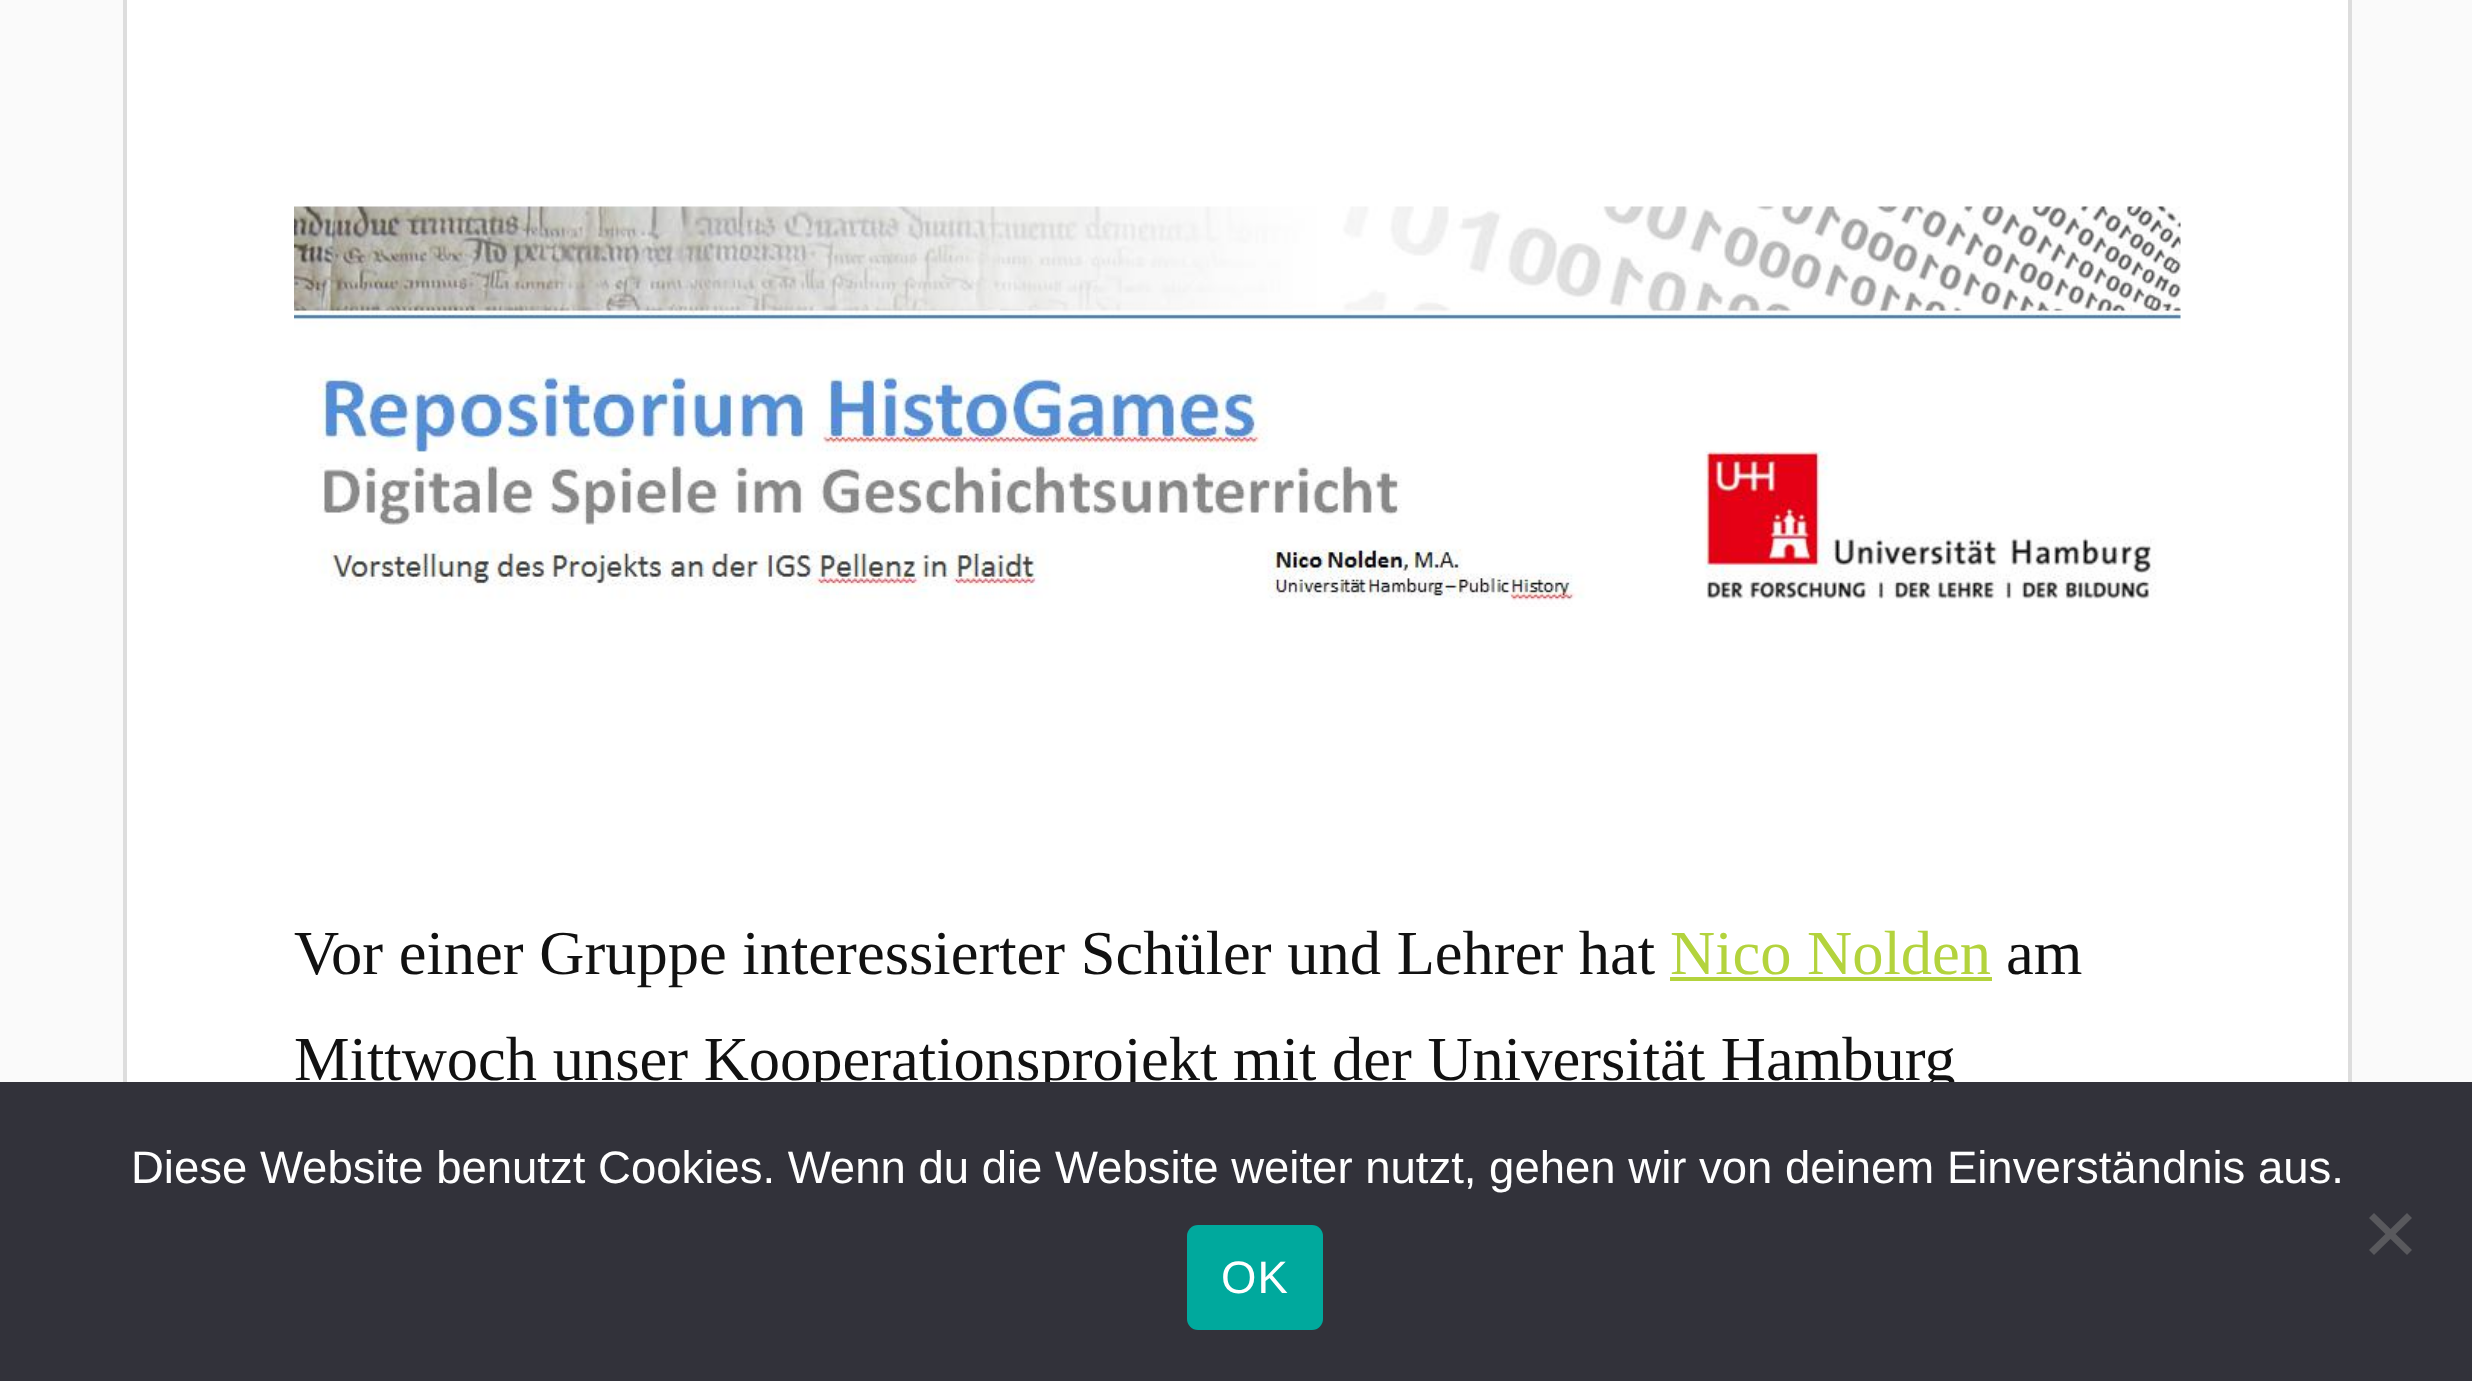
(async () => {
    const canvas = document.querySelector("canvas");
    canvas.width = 2472;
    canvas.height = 1381;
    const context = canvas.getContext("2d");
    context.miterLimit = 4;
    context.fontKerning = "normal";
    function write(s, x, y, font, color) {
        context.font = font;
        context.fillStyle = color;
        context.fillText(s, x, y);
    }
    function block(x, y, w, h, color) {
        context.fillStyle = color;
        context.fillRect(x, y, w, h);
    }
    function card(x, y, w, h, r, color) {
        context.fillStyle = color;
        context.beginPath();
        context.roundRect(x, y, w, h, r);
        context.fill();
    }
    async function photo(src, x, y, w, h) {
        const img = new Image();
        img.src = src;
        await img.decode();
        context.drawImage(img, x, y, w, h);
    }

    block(0, 0, 2472, 1381, "rgb(250, 250, 250)");
    block(127, 0, 2221, 1082, "rgb(255, 255, 255)");
    context.strokeStyle = "rgb(221, 221, 221)";
    context.lineWidth = 4;
    context.strokeRect(125, -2, 2225, 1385);
    await photo("media/1.png", 294, 206, 1887, 401);
    write("Vor einer Gruppe interessierter Schüler und Lehrer hat", 294, 974, "62.5px Liberation Serif", "rgb(17, 17, 17)");
    write("Nico Nolden", 1670, 974, "62.5px Liberation Serif", "rgb(179, 211, 61)");
    block(1670, 977, 322, 4, "rgb(179, 211, 61)");
    write("am", 2006, 974, "62.5px Liberation Serif", "rgb(17, 17, 17)");
    write("Mittwoch unser Kooperationsprojekt mit der Universität Hamburg", 294, 1080, "62.5px Liberation Serif", "rgb(17, 17, 17)");
    block(0, 1082, 2472, 299, "rgb(50, 50, 58)");
    write("Diese Website benutzt Cookies. Wenn du die Website weiter nutzt, gehen wir von deinem Einverständnis aus.", 131, 1183, "45.5px Liberation Sans", "rgb(255, 255, 255)");
    context.fillStyle = "rgb(89, 89, 93)";
    context.beginPath();
    context.moveTo(2407, 1213);
    context.lineTo(2412, 1218);
    context.lineTo(2374, 1255);
    context.lineTo(2369, 1250);
    context.closePath();
    context.fill();
    context.beginPath();
    context.moveTo(2369, 1218);
    context.lineTo(2374, 1213);
    context.lineTo(2412, 1250);
    context.lineTo(2407, 1255);
    context.closePath();
    context.fill();
    card(1187, 1225, 136, 105, 11, "rgb(0, 169, 157)");
    context.letterSpacing = "1px";
    write("OK", 1221, 1293, "45.5px Liberation Sans", "rgb(255, 255, 255)");
})();
